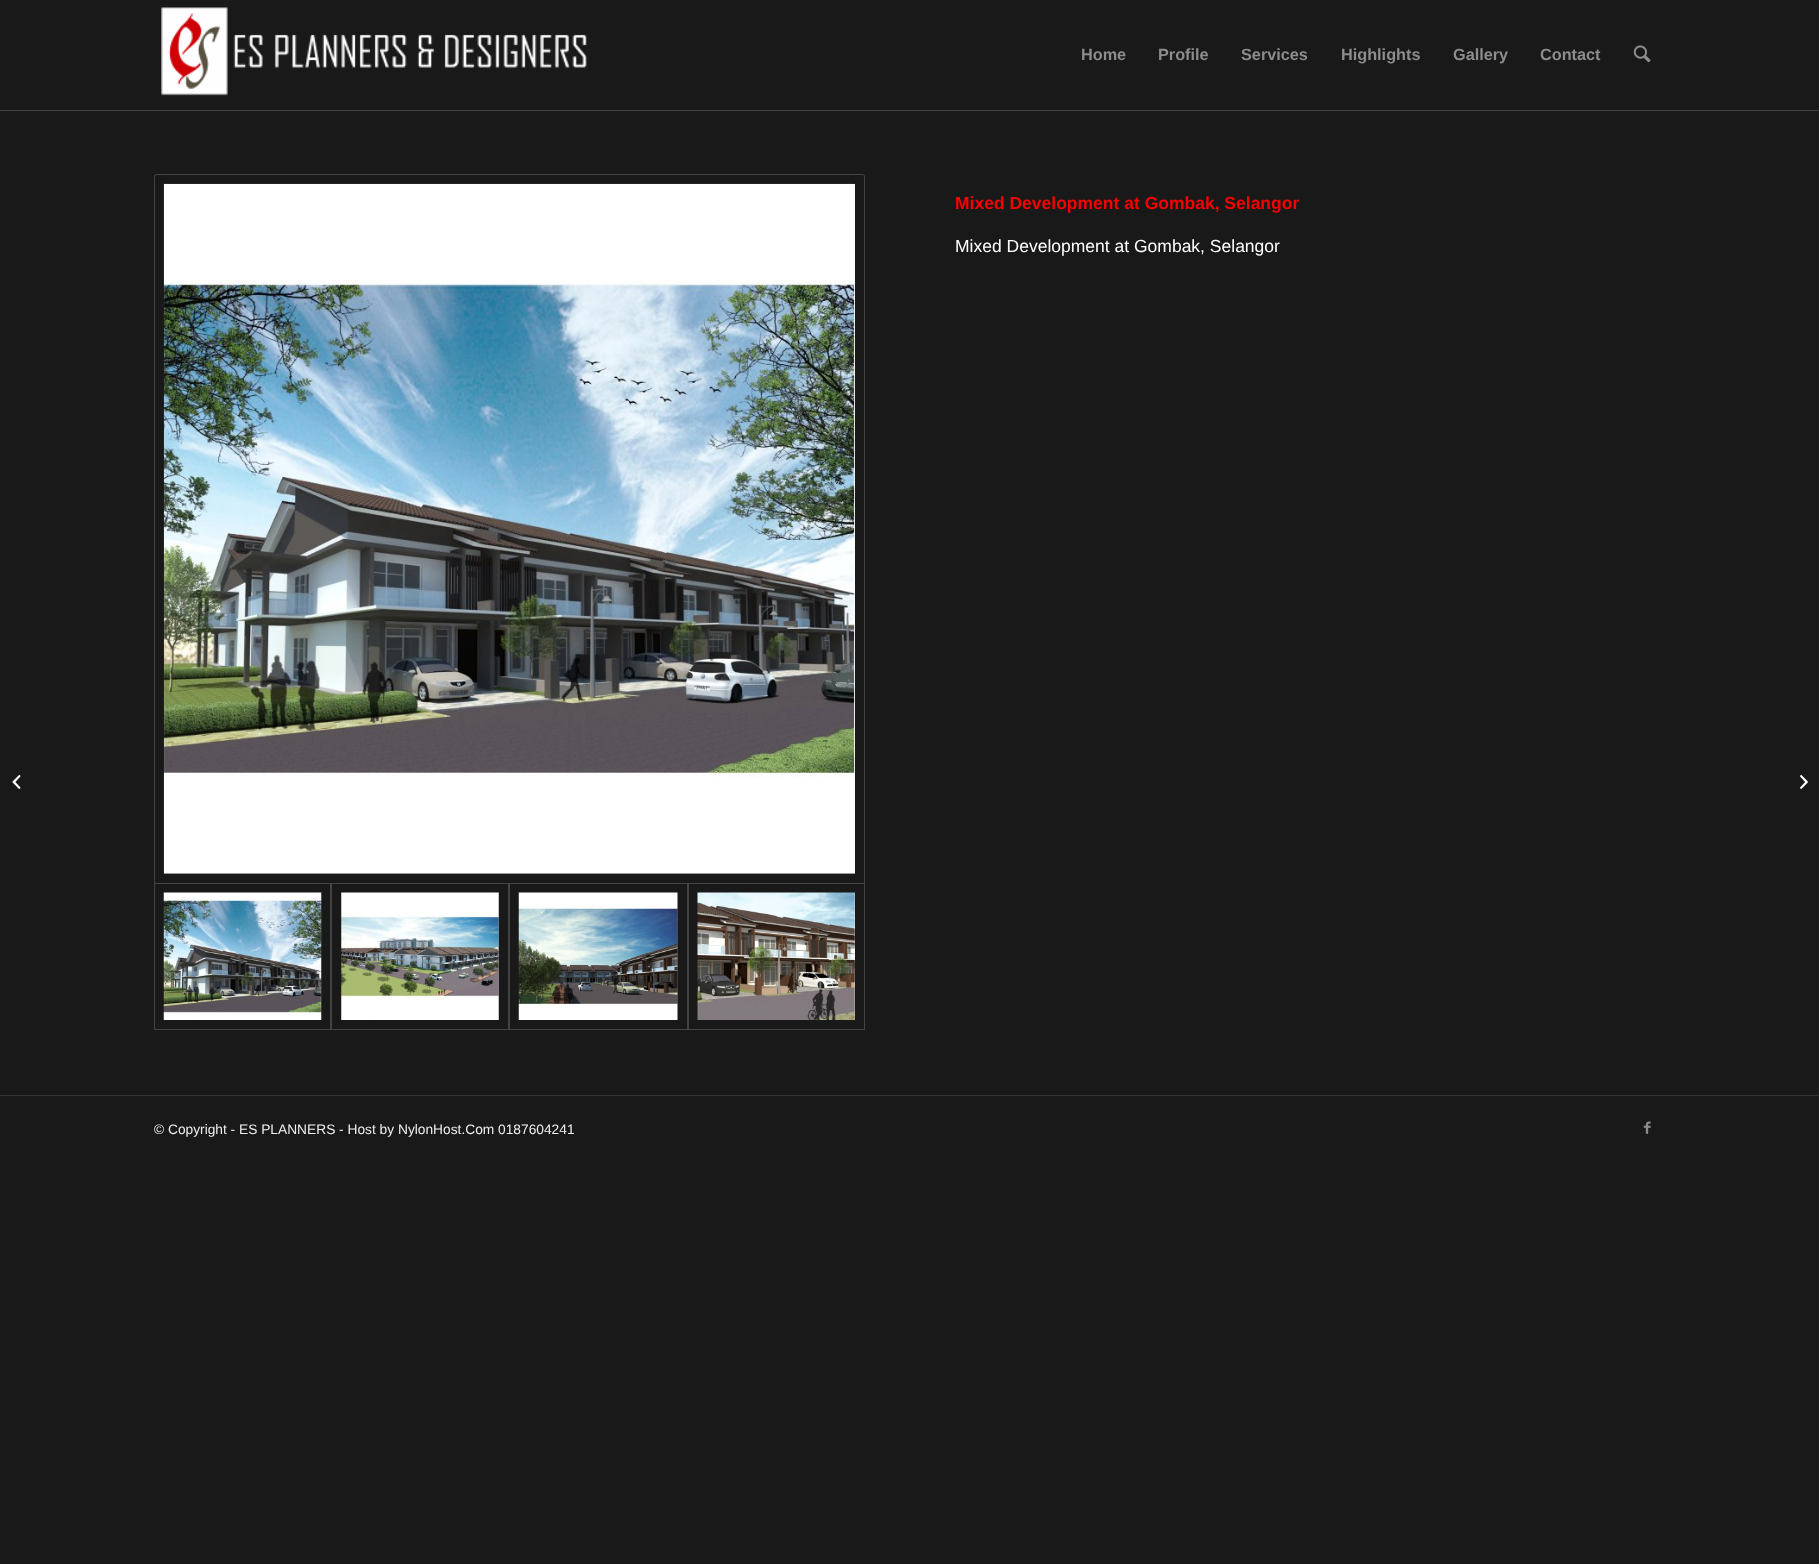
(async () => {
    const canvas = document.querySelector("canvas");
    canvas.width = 1819;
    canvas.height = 1564;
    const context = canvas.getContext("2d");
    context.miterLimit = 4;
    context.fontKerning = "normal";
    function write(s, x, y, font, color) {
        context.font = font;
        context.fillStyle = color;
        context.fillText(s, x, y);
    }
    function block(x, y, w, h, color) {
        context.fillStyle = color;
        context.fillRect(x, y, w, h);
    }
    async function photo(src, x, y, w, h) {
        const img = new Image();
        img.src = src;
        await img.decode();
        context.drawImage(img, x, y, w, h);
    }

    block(0, 0, 1819, 1564, "rgb(25, 25, 25)");
    block(0, 110, 1819, 1, "rgb(68, 68, 68)");
    await photo("media/1.png", 161, 7, 426, 89);
    write("Home", 1081, 60, "bold 16.25px Liberation Sans", "rgb(140, 140, 140)");
    write("Profile", 1158, 60, "bold 16.25px Liberation Sans", "rgb(140, 140, 140)");
    write("Services", 1241, 60, "bold 16.25px Liberation Sans", "rgb(140, 140, 140)");
    write("Highlights", 1341, 60, "bold 16.25px Liberation Sans", "rgb(140, 140, 140)");
    write("Gallery", 1453, 60, "bold 16.25px Liberation Sans", "rgb(140, 140, 140)");
    write("Contact", 1540, 60, "bold 16.25px Liberation Sans", "rgb(140, 140, 140)");
    await photo("media/2.png", 1633, 45, 18, 18);
    await photo("media/3.png", 12, 775, 9, 14);
    context.beginPath();
    context.roundRect(154.5, 174.5, 710, 709, [2, 2, 0, 0]);
    context.strokeStyle = "rgb(68, 68, 68)";
    context.stroke();
    await photo("media/4.png", 163, 183, 692, 691);
    context.strokeRect(154.5, 883.5, 176, 146);
    await photo("media/5.png", 163, 892, 159, 128);
    context.strokeRect(331.5, 883.5, 177, 146);
    await photo("media/6.png", 341, 892, 158, 128);
    context.strokeRect(509.5, 883.5, 178, 146);
    await photo("media/7.png", 518, 892, 160, 128);
    context.strokeRect(688.5, 883.5, 176, 146);
    await photo("media/8.png", 697, 892, 158, 128);
    write("Mixed Development at Gombak, Selangor", 955, 209, "bold 17.5px Liberation Sans", "rgb(247, 0, 0)");
    write("Mixed Development at Gombak, Selangor", 955, 252, "17.5px Liberation Sans", "rgb(255, 255, 255)");
    block(0, 1095, 1819, 1, "rgb(51, 51, 51)");
    write("© Copyright - ES PLANNERS - Host by NylonHost.Com 0187604241", 154, 1134, "13.75px Liberation Sans", "rgb(238, 238, 238)");
    await photo("media/9.png", 1643, 1121, 8, 13);
    await photo("media/10.png", 1800, 775, 8, 14);
})();
